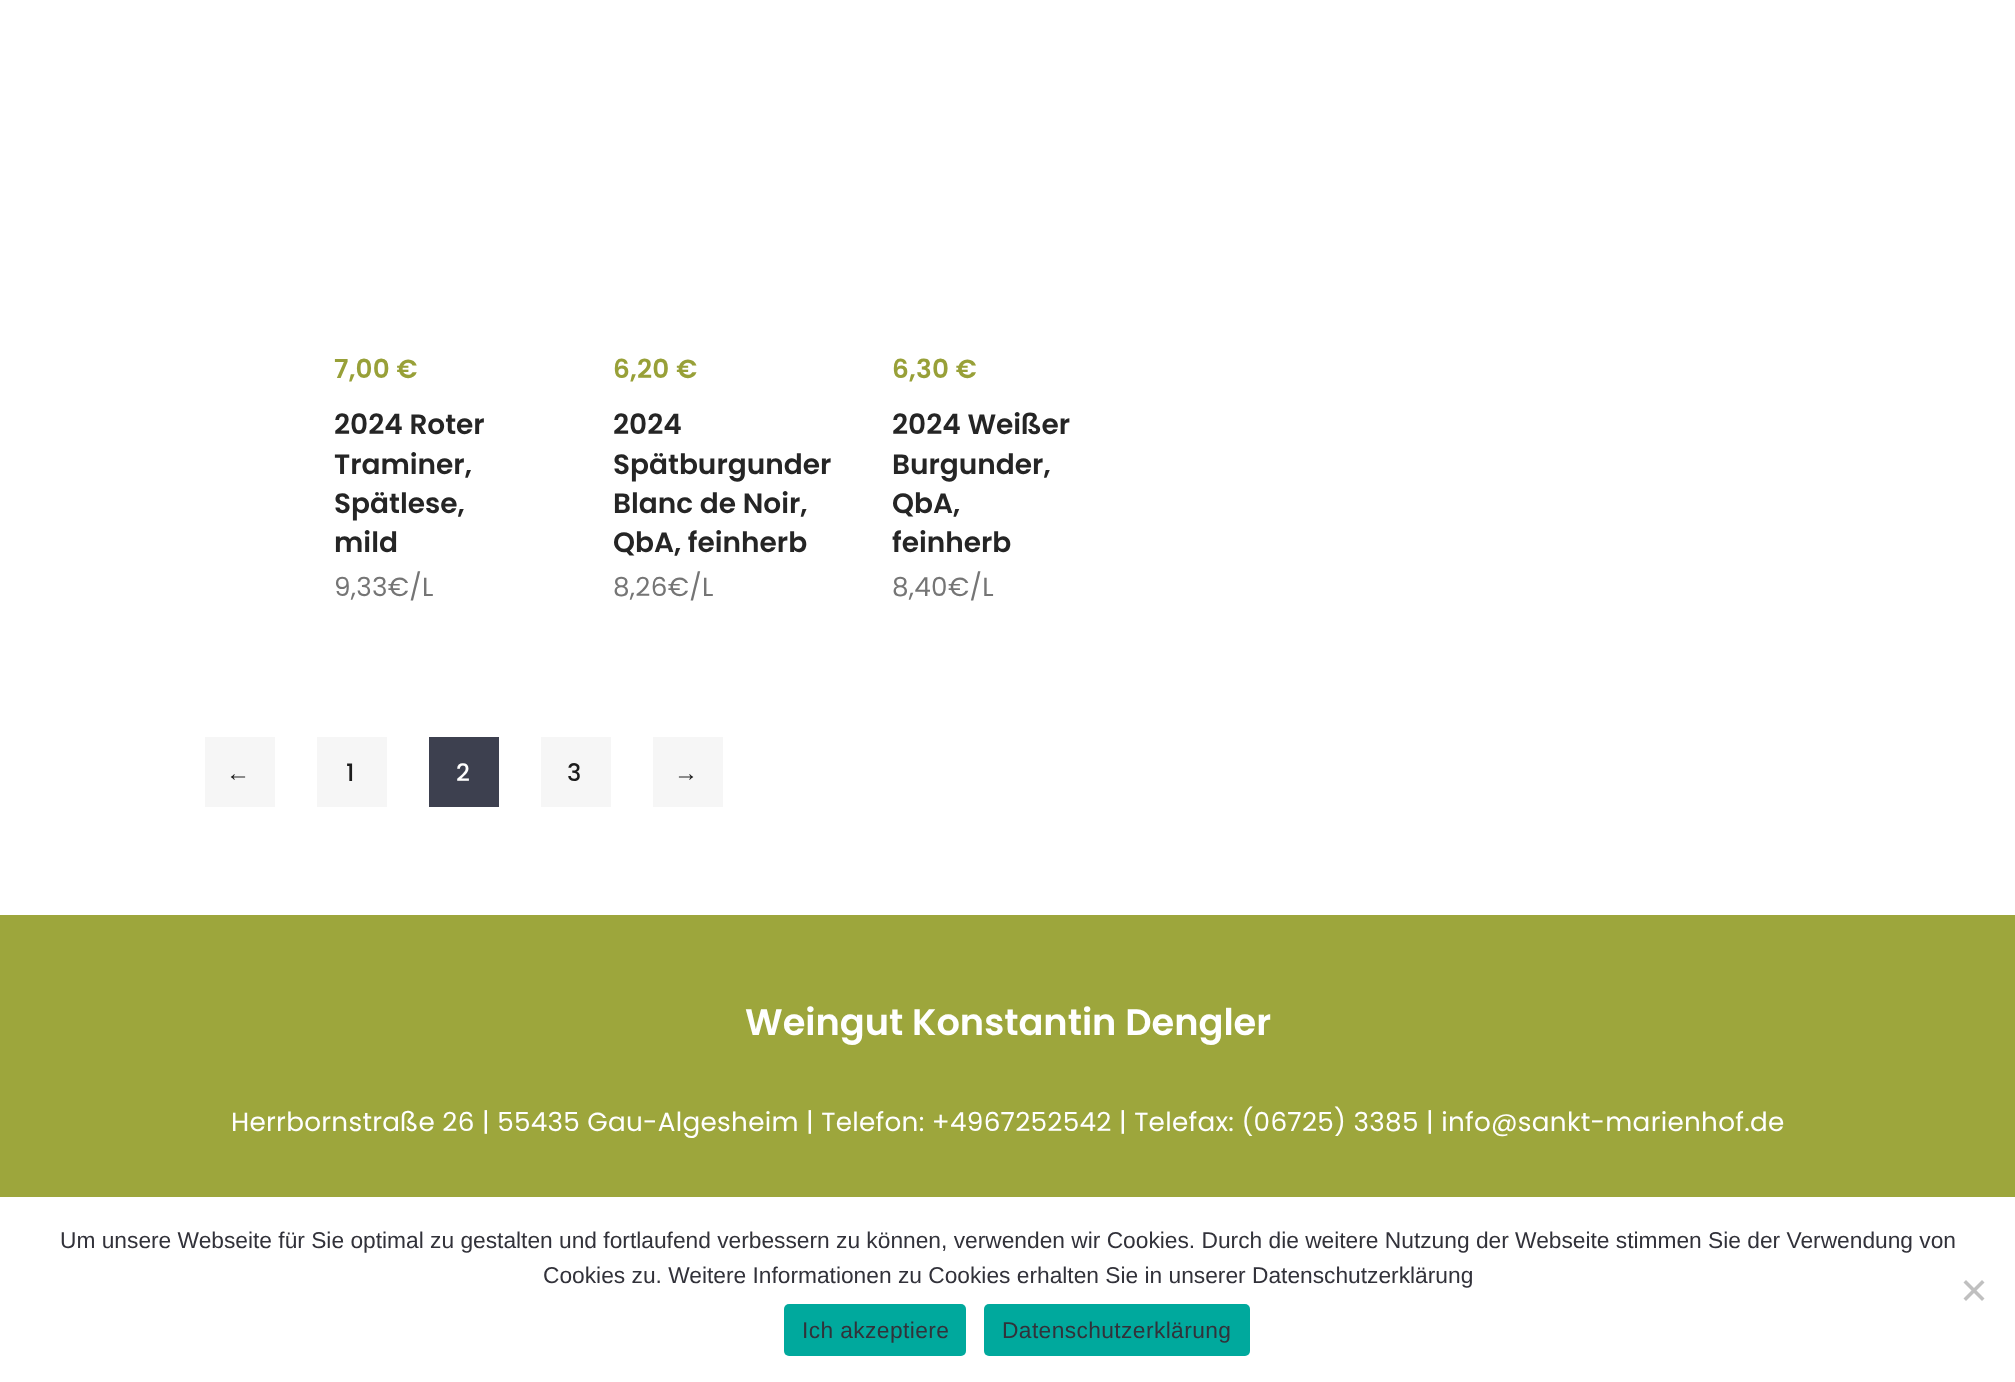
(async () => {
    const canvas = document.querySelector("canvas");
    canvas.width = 2015;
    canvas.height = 1382;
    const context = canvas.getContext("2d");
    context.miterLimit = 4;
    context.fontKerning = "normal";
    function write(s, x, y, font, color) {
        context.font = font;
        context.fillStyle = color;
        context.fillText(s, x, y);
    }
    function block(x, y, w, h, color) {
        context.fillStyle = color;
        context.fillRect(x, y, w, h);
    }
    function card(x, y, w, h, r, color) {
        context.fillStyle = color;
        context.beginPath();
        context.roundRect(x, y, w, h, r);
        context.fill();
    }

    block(0, 0, 2015, 1382, "rgb(255, 255, 255)");
    context.letterSpacing = "0.28px";
    write("7,00 €", 334, 378, "600 26.25px Poppins", "rgb(152, 160, 56)");
    context.letterSpacing = "0px";
    write("2024 Roter", 334, 434, "600 28px Poppins", "rgb(37, 37, 37)");
    write("Traminer,", 334, 474, "600 28px Poppins", "rgb(37, 37, 37)");
    write("Spätlese,", 334, 513, "600 28px Poppins", "rgb(37, 37, 37)");
    write("mild", 334, 552, "600 28px Poppins", "rgb(37, 37, 37)");
    context.letterSpacing = "0.28px";
    write("9,33€/L", 334, 596, "26.25px Poppins", "rgb(117, 117, 117)");
    write("6,20 €", 613, 378, "600 26.25px Poppins", "rgb(152, 160, 56)");
    context.letterSpacing = "0px";
    write("2024", 613, 434, "600 28px Poppins", "rgb(37, 37, 37)");
    write("Spätburgunder", 613, 474, "600 28px Poppins", "rgb(37, 37, 37)");
    write("Blanc de Noir,", 613, 513, "600 28px Poppins", "rgb(37, 37, 37)");
    write("QbA, feinherb", 613, 552, "600 28px Poppins", "rgb(37, 37, 37)");
    context.letterSpacing = "0.28px";
    write("8,26€/L", 613, 596, "26.25px Poppins", "rgb(117, 117, 117)");
    write("6,30 €", 892, 378, "600 26.25px Poppins", "rgb(152, 160, 56)");
    context.letterSpacing = "0px";
    write("2024 Weißer", 892, 434, "600 28px Poppins", "rgb(37, 37, 37)");
    write("Burgunder,", 892, 474, "600 28px Poppins", "rgb(37, 37, 37)");
    write("QbA,", 892, 513, "600 28px Poppins", "rgb(37, 37, 37)");
    write("feinherb", 892, 552, "600 28px Poppins", "rgb(37, 37, 37)");
    context.letterSpacing = "0.28px";
    write("8,40€/L", 892, 596, "26.25px Poppins", "rgb(117, 117, 117)");
    block(205, 737, 70, 70, "rgb(246, 246, 246)");
    write("←", 226, 781, "24px Liberation Serif", "rgb(29, 29, 29)");
    block(317, 737, 70, 70, "rgb(246, 246, 246)");
    write("1", 346, 781, "500 24px Poppins", "rgb(29, 29, 29)");
    block(429, 737, 70, 70, "rgb(61, 64, 79)");
    write("2", 456, 781, "500 24px Poppins", "rgb(255, 255, 255)");
    block(541, 737, 70, 70, "rgb(246, 246, 246)");
    write("3", 567, 781, "500 24px Poppins", "rgb(29, 29, 29)");
    block(653, 737, 70, 70, "rgb(246, 246, 246)");
    write("→", 674, 781, "24px Liberation Serif", "rgb(29, 29, 29)");
    block(0, 915, 2015, 282, "rgb(157, 166, 60)");
    context.letterSpacing = "0px";
    write("Weingut Konstantin Dengler", 745, 1035, "600 36.75px Poppins", "rgb(255, 255, 255)");
    context.letterSpacing = "0.28px";
    write("Herrbornstraße 26 | 55435 Gau-Algesheim | Telefon: +4967252542 | Telefax: (06725) 3385 | info@sankt-marienhof.de", 231, 1131, "26.25px Poppins", "rgb(255, 255, 255)");
    context.letterSpacing = "0px";
    write("Um unsere Webseite für Sie optimal zu gestalten und fortlaufend verbessern zu können, verwenden wir Cookies. Durch die weitere Nutzung der Webseite stimmen Sie der Verwendung von", 60, 1248, "22.75px Liberation Sans", "rgb(50, 50, 58)");
    write("Cookies zu. Weitere Informationen zu Cookies erhalten Sie in unserer Datenschutzerklärung", 543, 1283, "22.75px Liberation Sans", "rgb(50, 50, 58)");
    context.fillStyle = "rgb(192, 192, 192)";
    context.beginPath();
    context.moveTo(1982, 1280);
    context.lineTo(1984.5, 1282.5);
    context.lineTo(1966, 1301);
    context.lineTo(1963.5, 1298.5);
    context.closePath();
    context.fill();
    context.beginPath();
    context.moveTo(1963.5, 1282.5);
    context.lineTo(1966, 1280);
    context.lineTo(1984.5, 1298.5);
    context.lineTo(1982, 1301);
    context.closePath();
    context.fill();
    card(784, 1304, 182, 52, 5, "rgb(0, 169, 157)");
    context.letterSpacing = "0.4px";
    write("Ich akzeptiere", 802, 1338, "22.75px Liberation Sans", "rgb(50, 50, 58)");
    card(984, 1304, 266, 52, 5, "rgb(0, 169, 157)");
    write("Datenschutzerklärung", 1002, 1338, "22.75px Liberation Sans", "rgb(50, 50, 58)");
})();
